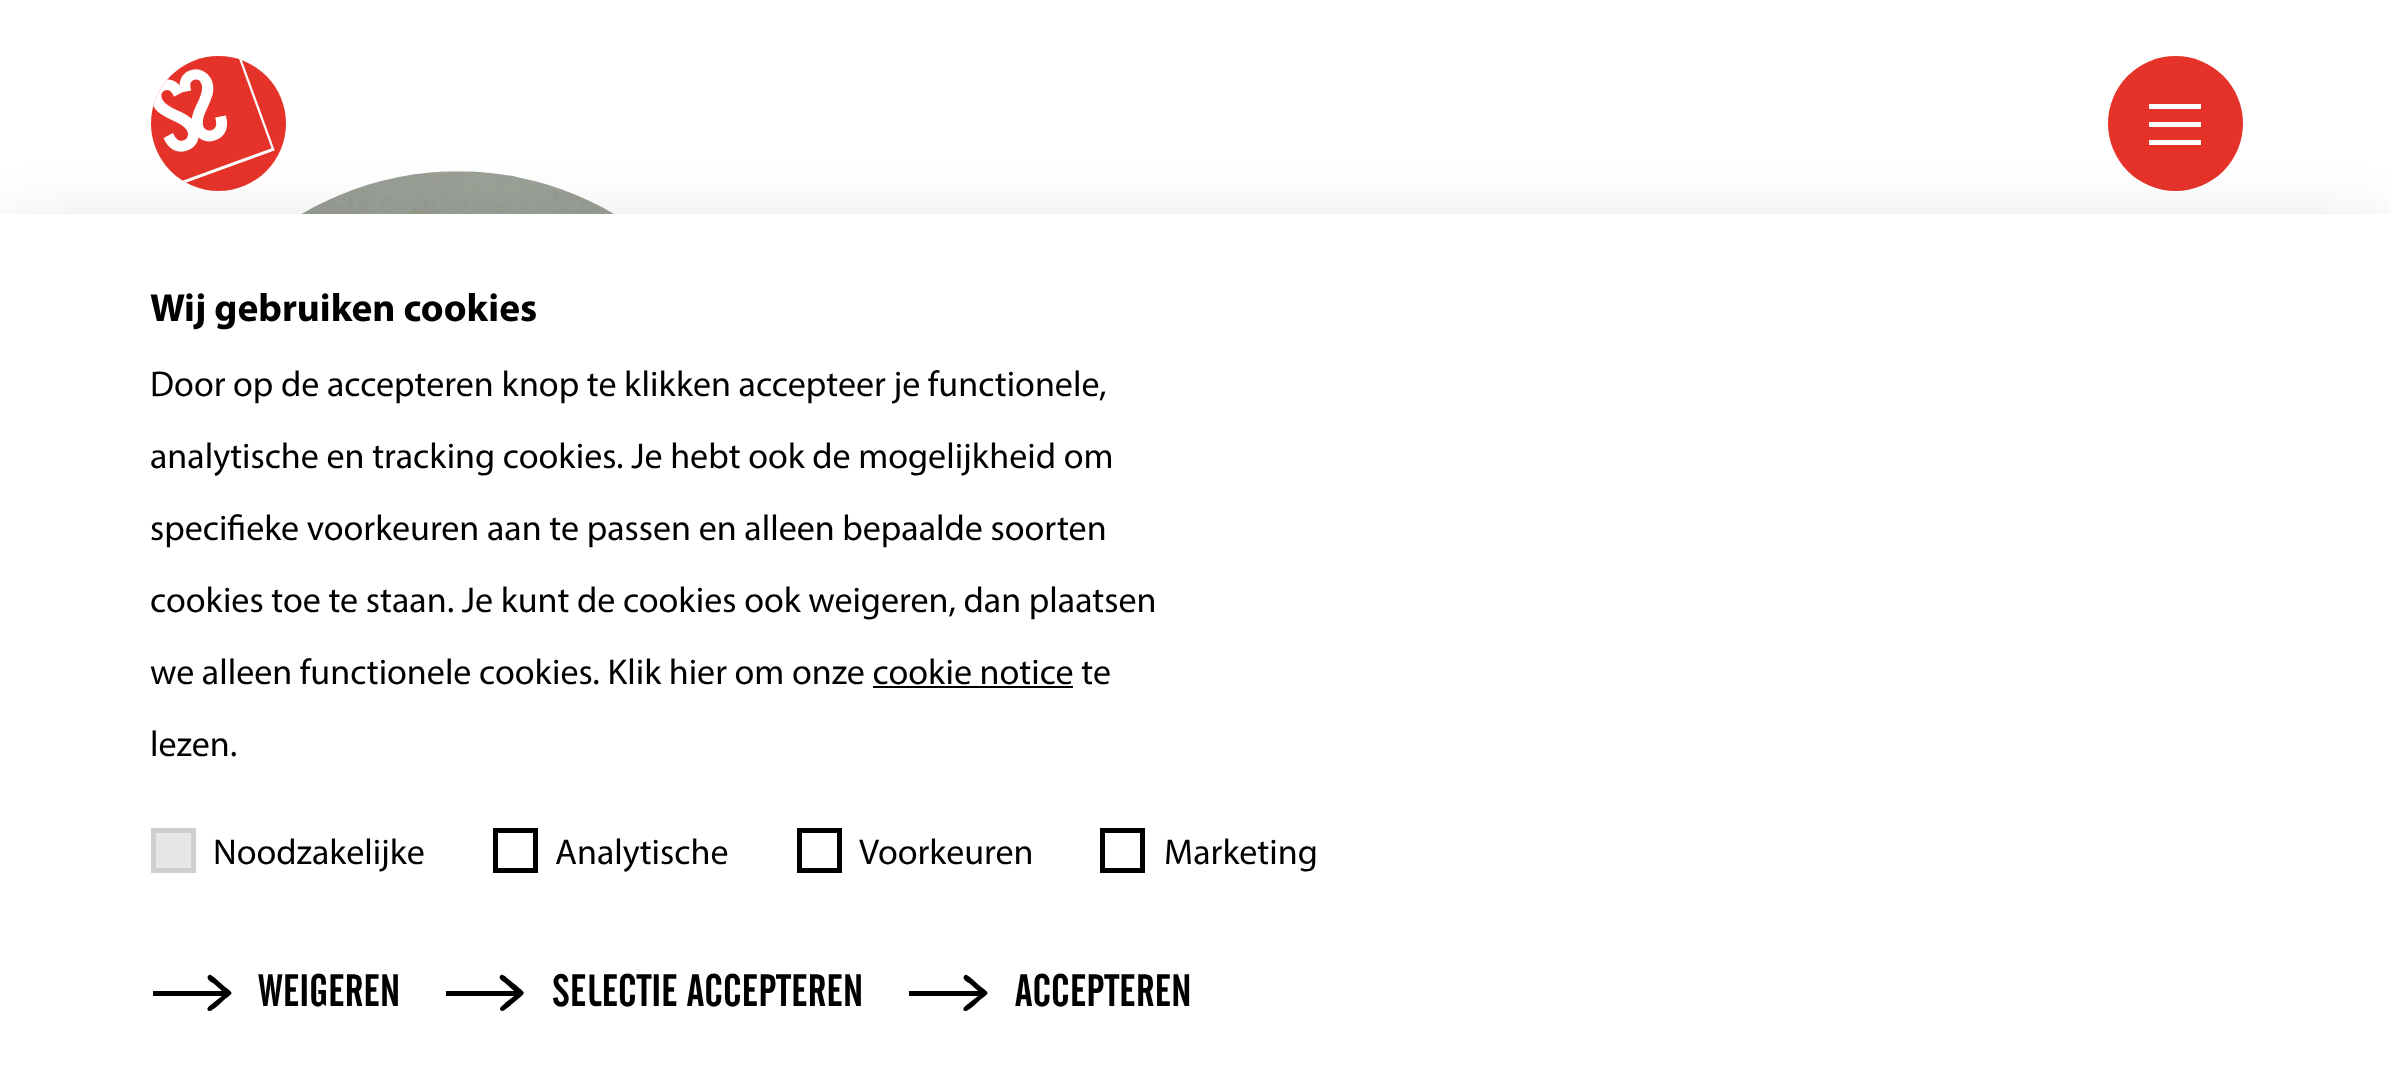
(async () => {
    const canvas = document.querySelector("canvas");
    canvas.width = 2391;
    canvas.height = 1071;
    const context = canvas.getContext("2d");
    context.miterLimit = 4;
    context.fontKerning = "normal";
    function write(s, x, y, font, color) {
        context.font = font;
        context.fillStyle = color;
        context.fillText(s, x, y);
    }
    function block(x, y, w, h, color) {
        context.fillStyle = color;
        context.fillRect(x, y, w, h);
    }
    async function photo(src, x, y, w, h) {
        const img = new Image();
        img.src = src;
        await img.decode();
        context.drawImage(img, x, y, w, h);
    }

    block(0, 0, 2391, 1071, "rgb(255, 255, 255)");
    context.fillStyle = "rgb(230, 51, 42)";
    context.beginPath();
    context.arc(218.5, 123.5, 67.5, 0, Math.PI * 2);
    context.fill();
    await photo("media/1.png", 153, 59, 122, 124);
    context.beginPath();
    context.arc(2175.5, 123.5, 67.5, 0, Math.PI * 2);
    context.fill();
    block(2149, 104, 52, 5, "rgb(255, 255, 255)");
    block(2149, 122, 52, 5, "rgb(255, 255, 255)");
    block(2149, 140, 52, 5, "rgb(255, 255, 255)");
    await photo("media/2.png", 301, 171, 313, 43);
    context.fillStyle = "rgba(0, 0, 0, 0.3)";
    context.filter = "blur(43px)";
    context.beginPath();
    context.rect(0, 257, 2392, 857);
    context.fill();
    context.filter = "none";
    block(0, 214, 2391, 857, "rgb(255, 255, 255)");
    write("Wij gebruiken cookies", 150, 321, "bold 39.5px Myriad", "rgb(0, 0, 0)");
    write("Door op de accepteren knop te klikken accepteer je functionele,", 150, 396, "36px Myriad", "rgb(0, 0, 0)");
    write("analytische en tracking cookies. Je hebt ook de mogelijkheid om", 150, 468, "36px Myriad", "rgb(0, 0, 0)");
    write("specifieke voorkeuren aan te passen en alleen bepaalde soorten", 150, 540, "36px Myriad", "rgb(0, 0, 0)");
    write("cookies toe te staan. Je kunt de cookies ook weigeren, dan plaatsen", 150, 612, "36px Myriad", "rgb(0, 0, 0)");
    write("we alleen functionele cookies. Klik hier om onze cookie notice te", 150, 684, "36px Myriad", "rgb(0, 0, 0)");
    block(873, 686, 200, 2, "rgb(0, 0, 0)");
    write("lezen.", 150, 756, "36px Myriad", "rgb(0, 0, 0)");
    context.fillStyle = "rgb(230, 230, 230)";
    context.beginPath();
    context.rect(153.5, 830.5, 40, 40);
    context.fill();
    context.strokeStyle = "rgb(207, 207, 207)";
    context.lineWidth = 5;
    context.stroke();
    write("Noodzakelijke", 213, 864, "36px Myriad", "rgb(0, 0, 0)");
    context.strokeStyle = "rgb(0, 0, 0)";
    context.strokeRect(495.5, 830.5, 40, 40);
    write("Analytische", 555, 864, "36px Myriad", "rgb(0, 0, 0)");
    context.strokeRect(799.5, 830.5, 40, 40);
    write("Voorkeuren", 859, 864, "36px Myriad", "rgb(0, 0, 0)");
    context.strokeRect(1102.5, 830.5, 40, 40);
    write("Marketing", 1164, 864, "36px Myriad", "rgb(0, 0, 0)");
    context.save();
    context.beginPath();
    context.rect(153, 974, 79, 39);
    context.clip();
    context.beginPath();
    context.moveTo(208, 976);
    context.bezierCurveTo(206, 979, 211, 982, 213, 983);
    context.lineTo(222, 991);
    context.lineTo(133, 991);
    context.bezierCurveTo(132, 991, 131, 992, 131, 993);
    context.bezierCurveTo(130, 998, 140, 996, 148, 996);
    context.lineTo(222, 996);
    context.lineTo(213, 1003);
    context.bezierCurveTo(212, 1004, 204, 1009, 209, 1011);
    context.bezierCurveTo(212, 1012, 222, 1002, 224, 1000);
    context.bezierCurveTo(234, 992, 234, 994, 224, 986);
    context.lineTo(215, 978);
    context.bezierCurveTo(213, 977, 211, 974, 209, 975);
    context.closePath();
    context.fill();
    context.restore();
    write("WEIGEREN", 258, 1006, "45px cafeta", "rgb(0, 0, 0)");
    context.save();
    context.beginPath();
    context.rect(446, 974, 78, 39);
    context.clip();
    context.beginPath();
    context.moveTo(500, 976);
    context.bezierCurveTo(498, 979, 504, 982, 505, 983);
    context.lineTo(514, 991);
    context.lineTo(425, 991);
    context.bezierCurveTo(424, 991, 423, 992, 423, 993);
    context.bezierCurveTo(422, 998, 433, 996, 440, 996);
    context.lineTo(514, 996);
    context.lineTo(505, 1003);
    context.bezierCurveTo(505, 1004, 496, 1009, 502, 1011);
    context.bezierCurveTo(504, 1012, 514, 1002, 517, 1000);
    context.bezierCurveTo(526, 992, 526, 994, 517, 986);
    context.lineTo(507, 978);
    context.bezierCurveTo(506, 977, 503, 974, 501, 975);
    context.closePath();
    context.fill();
    context.restore();
    write("SELECTIE ACCEPTEREN", 552, 1006, "45px cafeta", "rgb(0, 0, 0)");
    context.save();
    context.beginPath();
    context.rect(909, 974, 79, 39);
    context.clip();
    context.beginPath();
    context.moveTo(964, 976);
    context.bezierCurveTo(962, 979, 967, 982, 969, 983);
    context.lineTo(978, 991);
    context.lineTo(889, 991);
    context.bezierCurveTo(888, 991, 887, 992, 887, 993);
    context.bezierCurveTo(886, 998, 896, 996, 904, 996);
    context.lineTo(978, 996);
    context.lineTo(969, 1003);
    context.bezierCurveTo(968, 1004, 960, 1009, 965, 1011);
    context.bezierCurveTo(968, 1012, 978, 1002, 980, 1000);
    context.bezierCurveTo(990, 992, 990, 994, 980, 986);
    context.lineTo(971, 978);
    context.bezierCurveTo(969, 977, 967, 974, 965, 975);
    context.closePath();
    context.fill();
    context.restore();
    write("ACCEPTEREN", 1015, 1006, "45px cafeta", "rgb(0, 0, 0)");
})();
